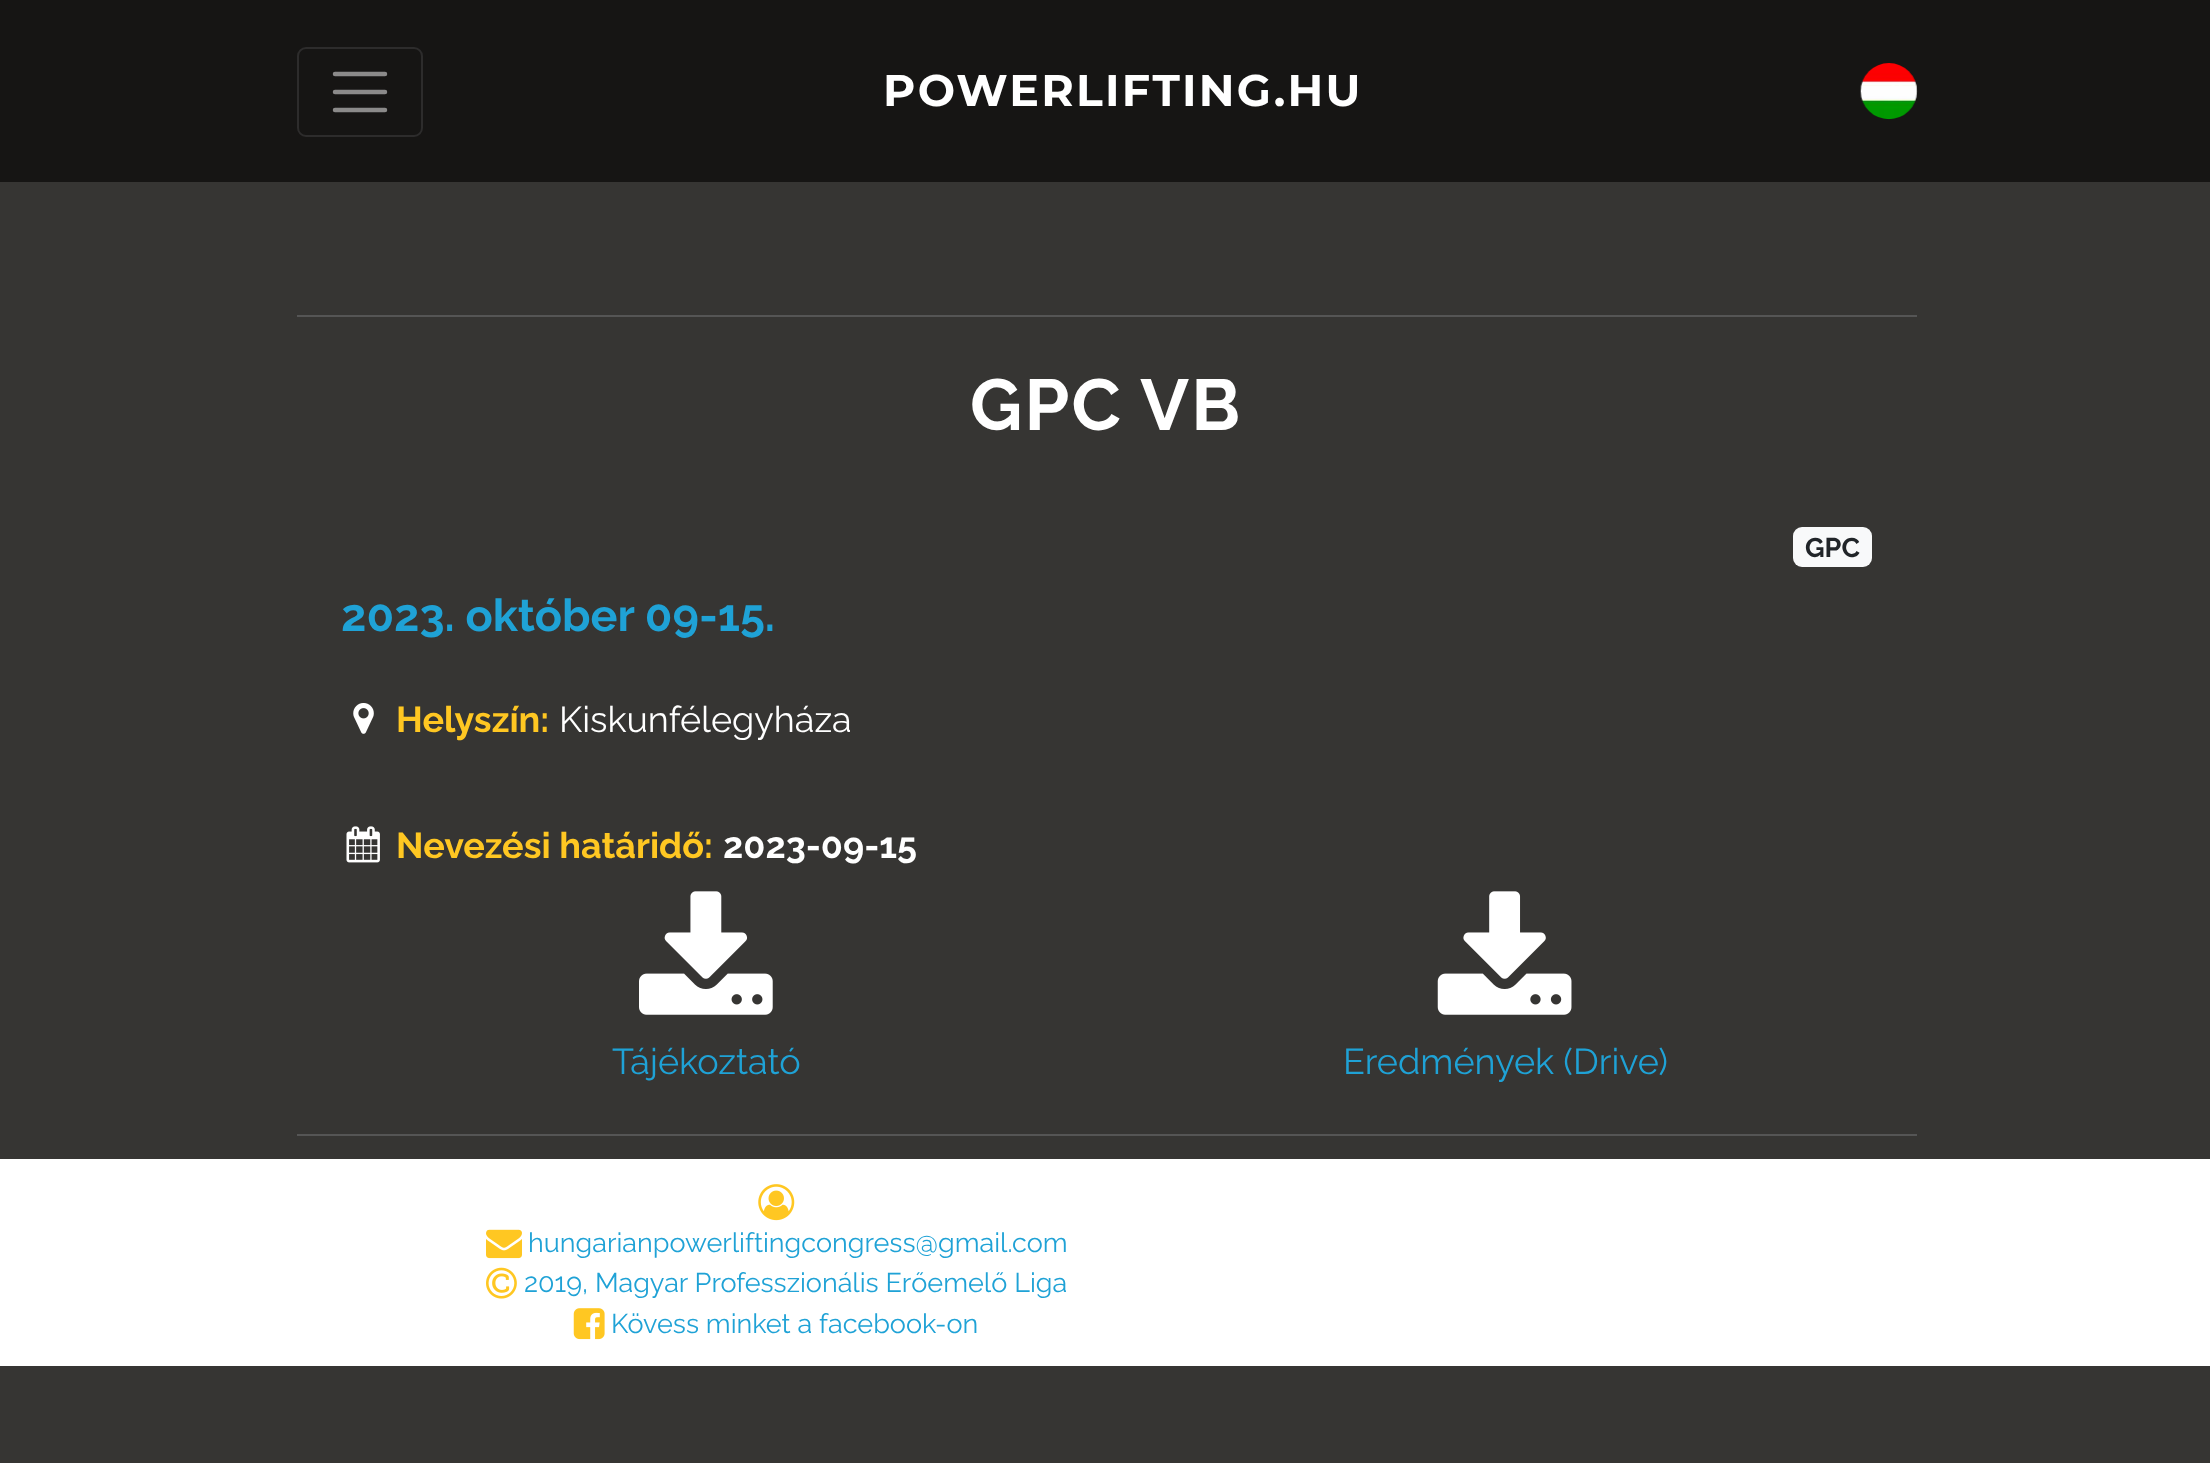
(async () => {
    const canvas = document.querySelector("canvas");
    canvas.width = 2210;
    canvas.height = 1463;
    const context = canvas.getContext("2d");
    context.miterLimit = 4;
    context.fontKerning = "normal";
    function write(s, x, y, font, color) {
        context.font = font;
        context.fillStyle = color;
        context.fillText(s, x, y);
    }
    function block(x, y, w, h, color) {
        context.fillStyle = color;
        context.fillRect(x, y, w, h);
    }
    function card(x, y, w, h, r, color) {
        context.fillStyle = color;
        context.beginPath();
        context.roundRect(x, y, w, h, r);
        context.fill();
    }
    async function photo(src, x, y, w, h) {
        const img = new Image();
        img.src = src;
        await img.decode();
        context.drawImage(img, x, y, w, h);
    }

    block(0, 0, 2210, 1463, "rgb(54, 53, 51)");
    block(0, 0, 2210, 182, "rgb(22, 21, 20)");
    context.beginPath();
    context.roundRect(298, 48, 124, 88, 8);
    context.strokeStyle = "rgb(45, 44, 44)";
    context.lineWidth = 2;
    context.stroke();
    context.beginPath();
    context.moveTo(335, 74);
    context.lineTo(385, 74);
    context.moveTo(335, 92);
    context.lineTo(385, 92);
    context.moveTo(335, 110);
    context.lineTo(385, 110);
    context.strokeStyle = "rgb(139, 138, 138)";
    context.lineWidth = 4.5;
    context.lineCap = "round";
    context.stroke();
    context.letterSpacing = "2.25px";
    write("POWERLIFTING.HU", 883, 106, "bold 44.25px Montserrat", "rgb(255, 255, 255)");
    await photo("media/1.png", 1860, 63, 58, 57);
    block(297, 315, 1620, 2, "rgb(85, 85, 85)");
    block(297, 1134, 1620, 2, "rgb(85, 85, 85)");
    write("GPC VB", 970, 430, "bold 72px Raleway", "rgb(255, 255, 255)");
    card(1793, 527, 79, 40, 9, "rgb(248, 249, 250)");
    context.letterSpacing = "0px";
    write("GPC", 1805, 557, "bold 27px Raleway", "rgb(33, 37, 41)");
    write("2023. október 09-15.", 341, 631, "bold 45px Raleway", "rgb(31, 162, 214)");
    await photo("media/2.png", 353, 703, 21, 31);
    write("Helyszín:", 396, 732, "bold 36px Raleway", "rgb(255, 199, 34)");
    write("Kiskunfélegyháza", 559, 732, "36px Raleway", "rgb(255, 255, 255)");
    await photo("media/3.png", 346, 826, 34, 37);
    write("Nevezési határidő:", 396, 858, "bold 36px Raleway", "rgb(255, 199, 34)");
    write("2023-09-15", 723, 858, "bold 36px Raleway", "rgb(255, 255, 255)");
    await photo("media/4.png", 639, 891, 134, 124);
    write("Tájékoztató", 612, 1074, "36px Raleway", "rgb(31, 162, 214)");
    await photo("media/5.png", 1437, 891, 135, 124);
    write("Eredmények (Drive)", 1343, 1074, "36px Raleway", "rgb(31, 162, 214)");
    block(0, 1159, 2210, 207, "rgb(255, 255, 255)");
    await photo("media/6.png", 758, 1184, 37, 37);
    await photo("media/7.png", 486, 1229, 36, 30);
    write("hungarianpowerliftingcongress@gmail.com", 528, 1252, "27px Raleway", "rgb(31, 162, 214)");
    await photo("media/8.png", 486, 1267, 31, 32);
    write("2019, Magyar Professzionális Erőemelő Liga", 524, 1292, "27px Raleway", "rgb(31, 162, 214)");
    await photo("media/9.png", 573, 1308, 32, 32);
    write("Kövess minket a facebook-on", 611, 1333, "27px Raleway", "rgb(31, 162, 214)");
})();
